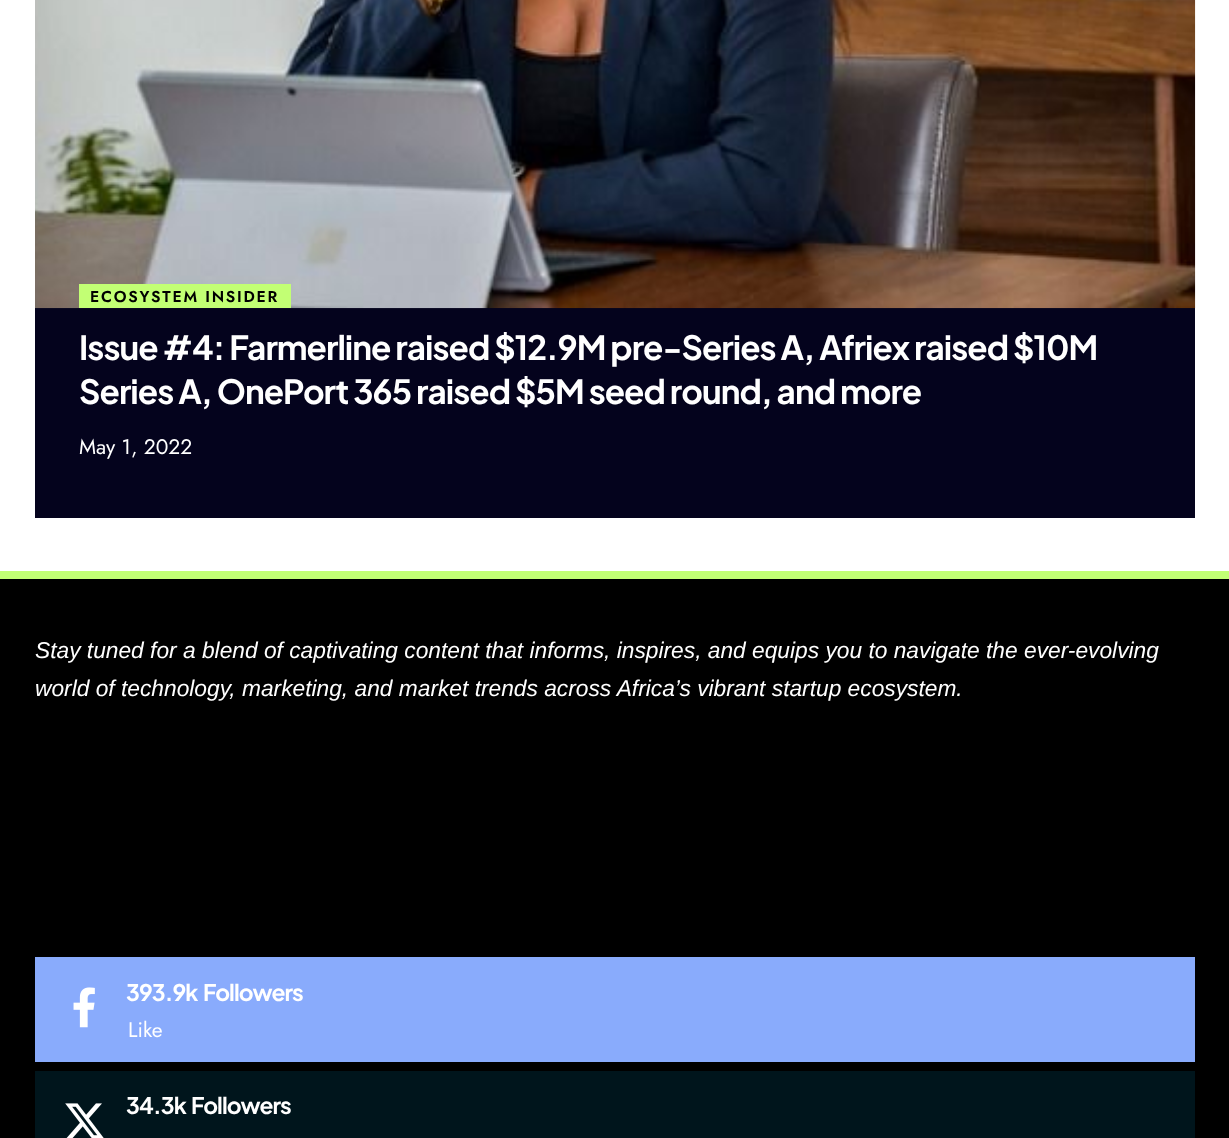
(async () => {
    const canvas = document.querySelector("canvas");
    canvas.width = 1229;
    canvas.height = 1138;
    const context = canvas.getContext("2d");
    context.miterLimit = 4;
    context.fontKerning = "normal";
    function write(s, x, y, font, color) {
        context.font = font;
        context.fillStyle = color;
        context.fillText(s, x, y);
    }
    function block(x, y, w, h, color) {
        context.fillStyle = color;
        context.fillRect(x, y, w, h);
    }
    async function photo(src, x, y, w, h) {
        const img = new Image();
        img.src = src;
        await img.decode();
        context.drawImage(img, x, y, w, h);
    }

    block(0, 0, 1229, 1138, "rgb(255, 255, 255)");
    block(35, 308, 1160, 210, "rgb(4, 3, 29)");
    await photo("media/1.png", 35, 0, 1161, 309);
    block(79, 284, 212, 24, "rgb(194, 255, 116)");
    context.letterSpacing = "1.75px";
    write("ECOSYSTEM INSIDER", 90, 302, "600 15.75px Jost", "rgb(0, 0, 0)");
    context.letterSpacing = "-0.98px";
    write("Issue #4: Farmerline raised $12.9M pre-Series A, Afriex raised $10M", 79, 360, "bold 33.25px Plus Jakarta Sans", "rgb(255, 255, 255)");
    write("Series A, OnePort 365 raised $5M seed round, and more", 79, 404, "bold 33.25px Plus Jakarta Sans", "rgb(255, 255, 255)");
    context.letterSpacing = "0px";
    write("May 1, 2022", 79, 454, "21px Jost", "rgb(255, 255, 255)");
    block(0, 579, 1229, 559, "rgb(0, 0, 0)");
    block(0, 571, 1229, 8, "rgb(194, 255, 116)");
    write("Stay tuned for a blend of captivating content that informs, inspires, and equips you to navigate the ever-evolving", 35, 658, "italic 22.75px Liberation Sans", "rgb(255, 255, 255)");
    write("world of technology, marketing, and market trends across Africa’s vibrant startup ecosystem.", 35, 696, "italic 22.75px Liberation Sans", "rgb(255, 255, 255)");
    block(35, 957, 1160, 105, "rgb(137, 171, 252)");
    await photo("media/2.png", 73, 987, 22, 41);
    context.letterSpacing = "-0.9px";
    write("393.9k", 126, 1001, "bold 22.75px Plus Jakarta Sans", "rgb(255, 255, 255)");
    write("Followers", 203, 1001, "bold 22.75px Plus Jakarta Sans", "rgb(255, 255, 255)");
    context.letterSpacing = "0px";
    write("Like", 128, 1037, "21px Jost", "rgb(255, 255, 255)");
    block(35, 1071, 1160, 67, "rgb(0, 21, 28)");
    await photo("media/3.png", 65, 1103, 39, 35);
    context.letterSpacing = "-0.9px";
    write("34.3k", 126, 1114, "bold 22.75px Plus Jakarta Sans", "rgb(255, 255, 255)");
    write("Followers", 191, 1114, "bold 22.75px Plus Jakarta Sans", "rgb(255, 255, 255)");
})();
